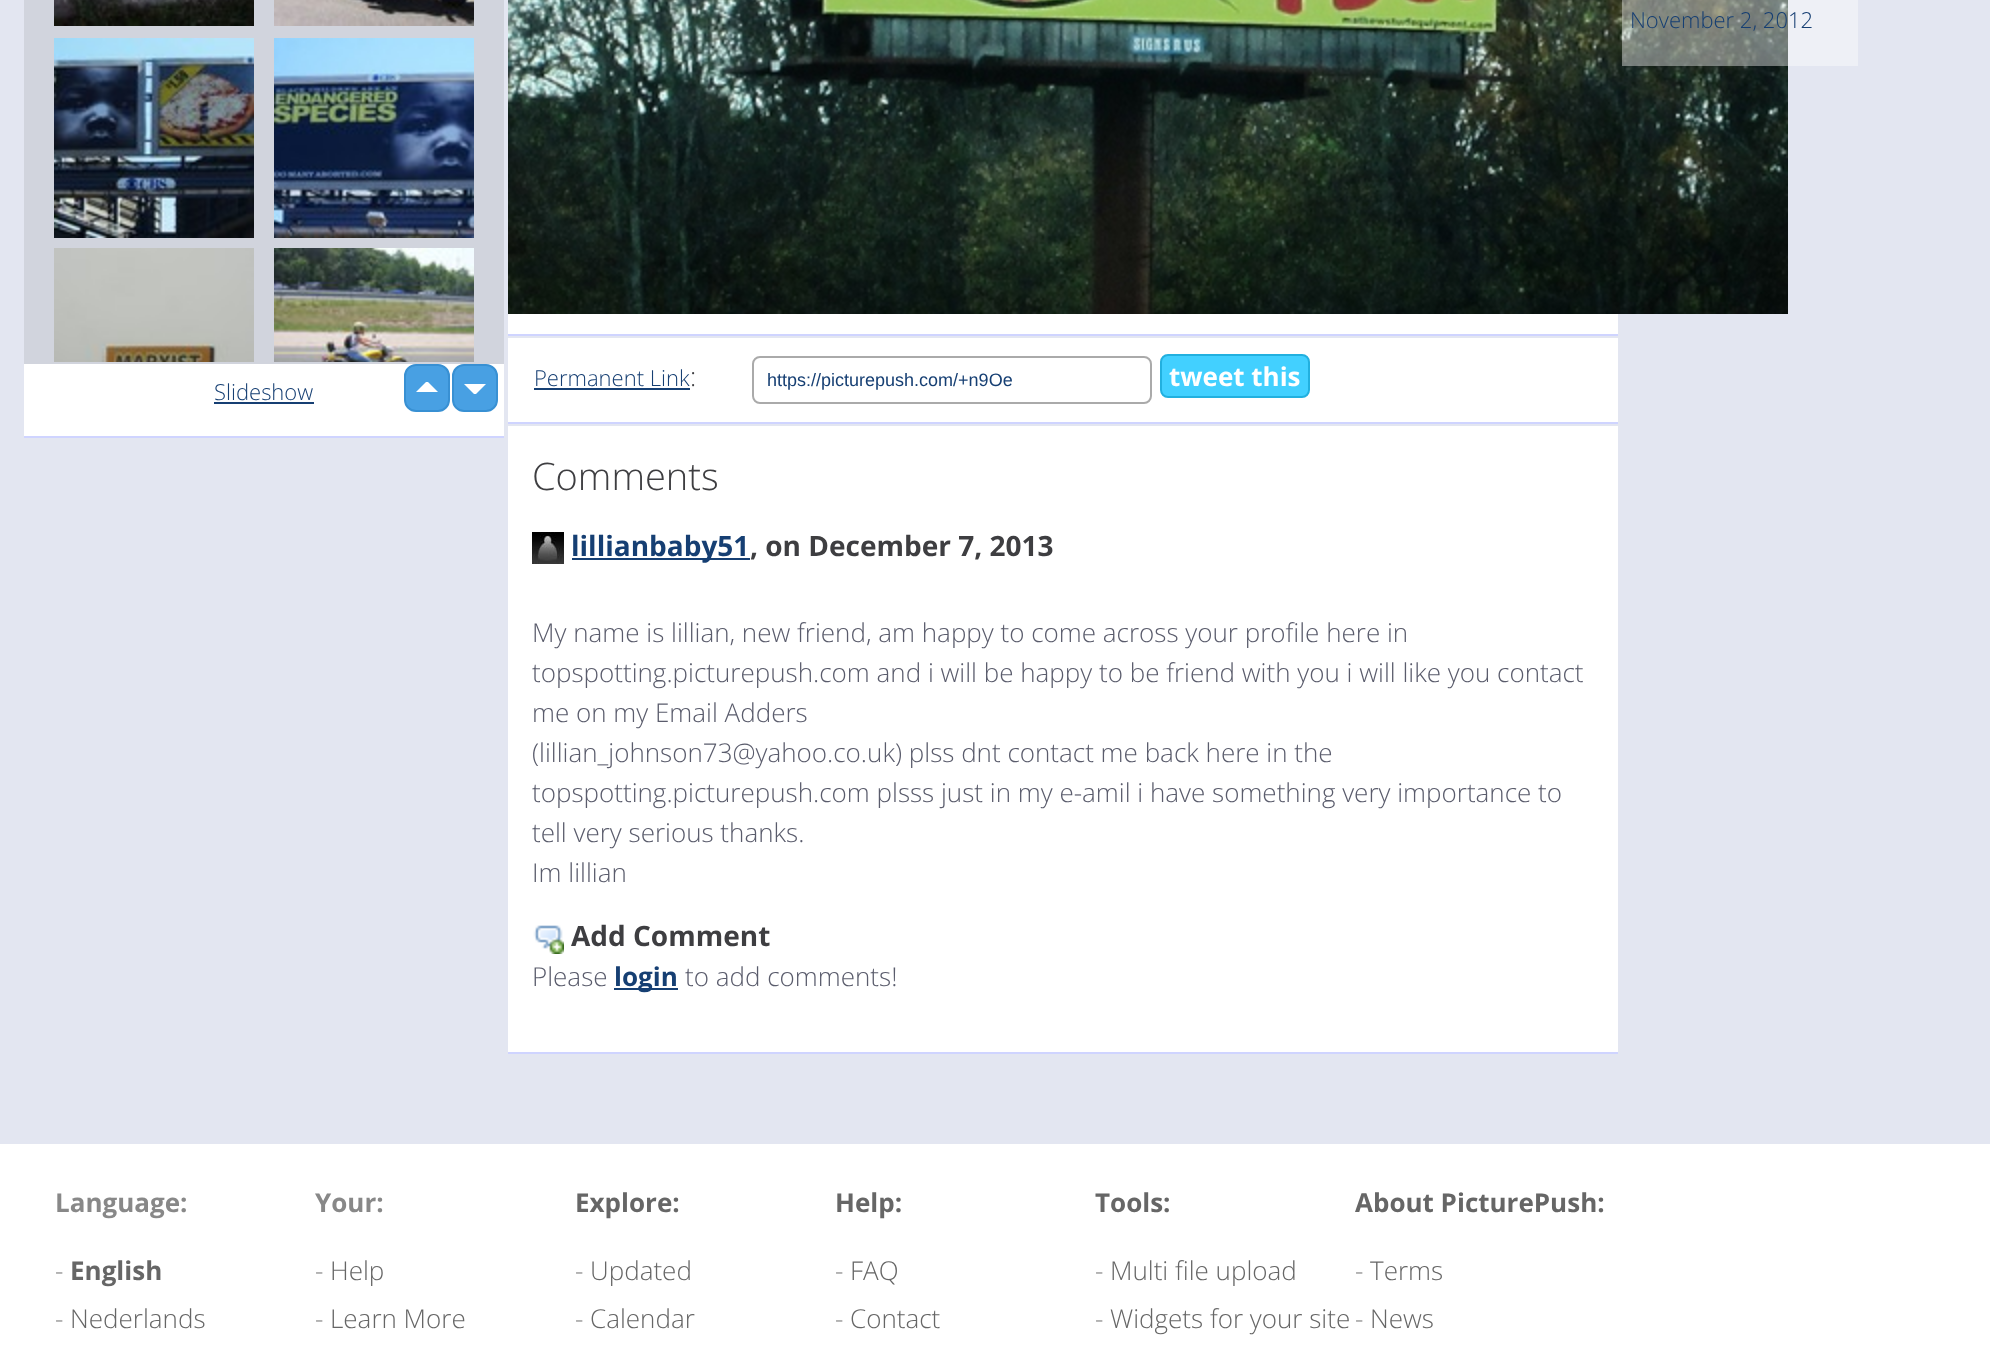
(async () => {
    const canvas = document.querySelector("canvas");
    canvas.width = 1990;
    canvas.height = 1363;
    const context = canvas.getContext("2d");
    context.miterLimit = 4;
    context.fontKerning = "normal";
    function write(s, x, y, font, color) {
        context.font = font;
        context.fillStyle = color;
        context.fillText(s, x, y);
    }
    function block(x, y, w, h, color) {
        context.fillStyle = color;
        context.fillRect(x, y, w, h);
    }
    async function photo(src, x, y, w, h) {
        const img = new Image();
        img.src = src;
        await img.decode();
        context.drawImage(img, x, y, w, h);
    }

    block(0, 0, 1990, 1363, "rgb(227, 230, 241)");
    block(24, 0, 480, 364, "rgb(209, 212, 221)");
    block(24, 436, 480, 2, "rgb(207, 212, 255)");
    await photo("media/1.png", 54, 0, 200, 26);
    await photo("media/2.png", 274, 0, 200, 26);
    await photo("media/3.png", 54, 38, 200, 200);
    await photo("media/4.png", 274, 38, 200, 200);
    await photo("media/5.png", 54, 248, 200, 114);
    await photo("media/6.png", 274, 248, 200, 114);
    block(24, 364, 480, 72, "rgb(255, 255, 255)");
    context.fillStyle = "rgb(72, 160, 227)";
    context.beginPath();
    context.roundRect(405, 365, 44, 46, 11);
    context.fill();
    context.strokeStyle = "rgb(56, 144, 211)";
    context.lineWidth = 2;
    context.stroke();
    context.fillStyle = "rgb(255, 255, 255)";
    context.beginPath();
    context.moveTo(438, 392);
    context.lineTo(416, 392);
    context.lineTo(426, 382);
    context.lineTo(428, 382);
    context.closePath();
    context.fill();
    context.fillStyle = "rgb(72, 160, 227)";
    context.beginPath();
    context.roundRect(453, 365, 44, 46, 11);
    context.fill();
    context.stroke();
    context.fillStyle = "rgb(255, 255, 255)";
    context.beginPath();
    context.moveTo(464, 384);
    context.lineTo(486, 384);
    context.lineTo(476, 394);
    context.lineTo(474, 394);
    context.closePath();
    context.fill();
    write("Slideshow", 214, 400, "300 22px Open Sans", "rgb(22, 63, 115)");
    block(214, 402, 100, 2, "rgb(22, 63, 115)");
    block(508, 314, 1110, 20, "rgb(255, 255, 255)");
    block(508, 334, 1110, 2, "rgb(207, 212, 255)");
    await photo("media/7.png", 508, 0, 1280, 314);
    block(1622, 0, 236, 66, "rgba(255, 255, 255, 0.4)");
    write("November 2, 2012", 1630, 28, "300 22px Open Sans", "rgb(22, 63, 115)");
    block(508, 338, 1110, 84, "rgb(255, 255, 255)");
    block(508, 422, 1110, 2, "rgb(207, 212, 255)");
    write("Permanent Link", 534, 386, "300 22px Open Sans", "rgb(22, 63, 115)");
    block(534, 388, 156, 2, "rgb(22, 63, 115)");
    write(":", 690, 386, "300 26px Open Sans", "rgb(62, 62, 65)");
    context.beginPath();
    context.roundRect(753, 357, 398, 46, 7);
    context.strokeStyle = "rgb(170, 170, 170)";
    context.stroke();
    write("https://picturepush.com/+n9Oe", 767, 386, "18px Liberation Sans", "rgb(22, 63, 115)");
    context.fillStyle = "rgb(66, 208, 255)";
    context.beginPath();
    context.roundRect(1161, 355, 148, 42, 7);
    context.fill();
    context.strokeStyle = "rgb(34, 176, 223)";
    context.stroke();
    write("tweet this", 1169, 386, "bold 26px Open Sans", "rgb(255, 255, 255)");
    block(508, 426, 1110, 626, "rgb(255, 255, 255)");
    block(508, 1052, 1110, 2, "rgb(207, 212, 255)");
    write("Comments", 532, 490, "300 38px Open Sans", "rgb(62, 62, 65)");
    await photo("media/8.png", 532, 532, 32, 32);
    block(572, 558, 178, 2, "rgb(22, 63, 115)");
    write("lillianbaby51", 571, 556, "bold 28px Open Sans", "rgb(22, 63, 115)");
    write(", on December 7, 2013", 750, 556, "bold 28px Open Sans", "rgb(62, 62, 65)");
    write("My name is lillian, new friend, am happy to come across your profile here in", 532, 642, "300 26px Open Sans", "rgb(90, 92, 108)");
    write("topspotting.picturepush.com and i will be happy to be friend with you i will like you contact", 532, 682, "300 26px Open Sans", "rgb(90, 92, 108)");
    write("me on my Email Adders", 532, 722, "300 26px Open Sans", "rgb(90, 92, 108)");
    write("(lillian_johnson73@yahoo.co.uk) plss dnt contact me back here in the", 532, 762, "300 26px Open Sans", "rgb(90, 92, 108)");
    write("topspotting.picturepush.com plsss just in my e-amil i have something very importance to", 532, 802, "300 26px Open Sans", "rgb(90, 92, 108)");
    write("tell very serious thanks.", 532, 842, "300 26px Open Sans", "rgb(90, 92, 108)");
    write("Im lillian", 532, 882, "300 26px Open Sans", "rgb(90, 92, 108)");
    await photo("media/9.png", 533, 925, 31, 29);
    write("Add Comment", 571, 946, "bold 28px Open Sans", "rgb(62, 62, 65)");
    write("Please", 532, 986, "300 26px Open Sans", "rgb(90, 92, 108)");
    block(614, 988, 64, 2, "rgb(22, 63, 115)");
    write("login", 614, 986, "bold 26px Open Sans", "rgb(22, 63, 115)");
    write("to add comments!", 685, 986, "300 26px Open Sans", "rgb(90, 92, 108)");
    block(0, 1144, 1990, 219, "rgb(255, 255, 255)");
    write("Language:", 55, 1212, "bold 26px Open Sans", "rgb(136, 136, 136)");
    write("-", 55, 1280, "300 26px Open Sans", "rgb(136, 136, 136)");
    write("English", 70, 1280, "bold 26px Open Sans", "rgb(102, 102, 102)");
    write("-", 55, 1328, "300 26px Open Sans", "rgb(136, 136, 136)");
    write("Nederlands", 70, 1328, "300 26px Open Sans", "rgb(102, 102, 102)");
    write("Your:", 315, 1212, "bold 26px Open Sans", "rgb(136, 136, 136)");
    write("-", 315, 1280, "300 26px Open Sans", "rgb(136, 136, 136)");
    write("Help", 330, 1280, "300 26px Open Sans", "rgb(102, 102, 102)");
    write("-", 315, 1328, "300 26px Open Sans", "rgb(136, 136, 136)");
    write("Learn More", 330, 1328, "300 26px Open Sans", "rgb(102, 102, 102)");
    write("Explore:", 575, 1212, "bold 26px Open Sans", "rgb(102, 102, 102)");
    write("-", 575, 1280, "300 26px Open Sans", "rgb(136, 136, 136)");
    write("Updated", 590, 1280, "300 26px Open Sans", "rgb(102, 102, 102)");
    write("-", 575, 1328, "300 26px Open Sans", "rgb(136, 136, 136)");
    write("Calendar", 590, 1328, "300 26px Open Sans", "rgb(102, 102, 102)");
    write("Help:", 835, 1212, "bold 26px Open Sans", "rgb(102, 102, 102)");
    write("-", 835, 1280, "300 26px Open Sans", "rgb(136, 136, 136)");
    write("FAQ", 850, 1280, "300 26px Open Sans", "rgb(102, 102, 102)");
    write("-", 835, 1328, "300 26px Open Sans", "rgb(136, 136, 136)");
    write("Contact", 850, 1328, "300 26px Open Sans", "rgb(102, 102, 102)");
    write("Tools:", 1095, 1212, "bold 26px Open Sans", "rgb(102, 102, 102)");
    write("-", 1095, 1280, "300 26px Open Sans", "rgb(136, 136, 136)");
    write("Multi file upload", 1110, 1280, "300 26px Open Sans", "rgb(102, 102, 102)");
    write("-", 1095, 1328, "300 26px Open Sans", "rgb(136, 136, 136)");
    write("Widgets for your site", 1110, 1328, "300 26px Open Sans", "rgb(102, 102, 102)");
    write("About PicturePush:", 1355, 1212, "bold 26px Open Sans", "rgb(102, 102, 102)");
    write("-", 1355, 1280, "300 26px Open Sans", "rgb(136, 136, 136)");
    write("Terms", 1370, 1280, "300 26px Open Sans", "rgb(102, 102, 102)");
    write("-", 1355, 1328, "300 26px Open Sans", "rgb(136, 136, 136)");
    write("News", 1370, 1328, "300 26px Open Sans", "rgb(102, 102, 102)");
})();
